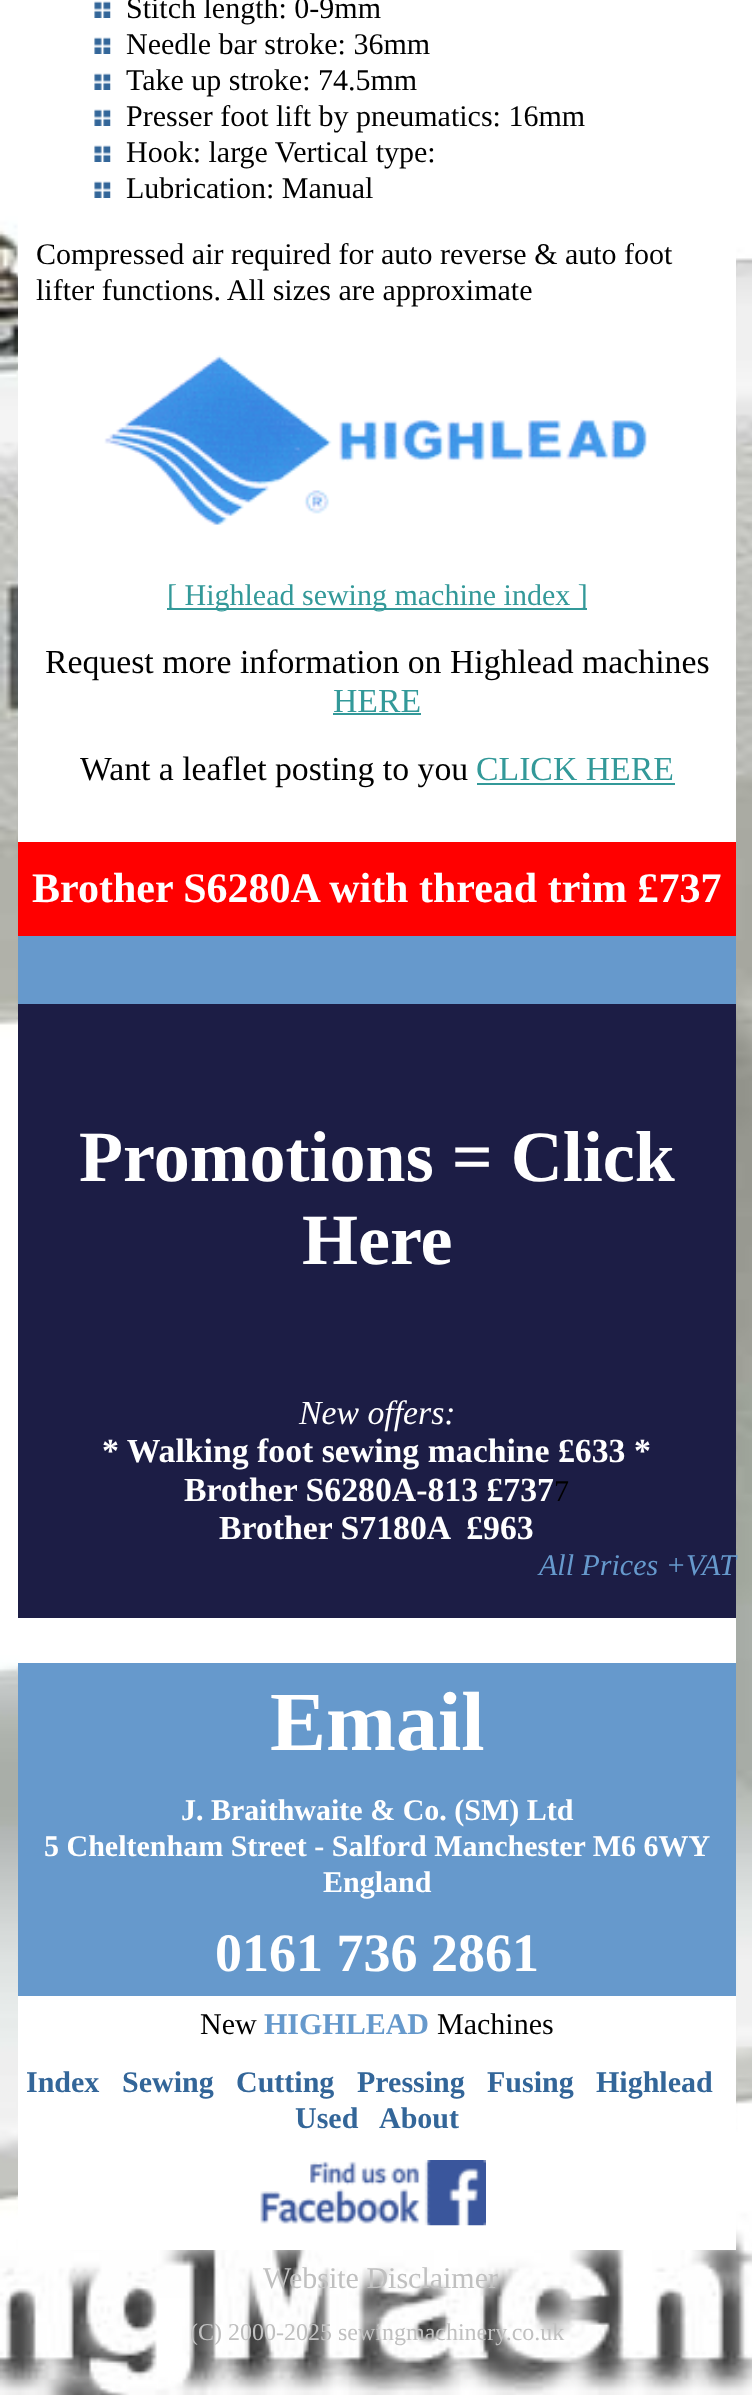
(async () => {
    const canvas = document.querySelector("canvas");
    canvas.width = 752;
    canvas.height = 2395;
    const context = canvas.getContext("2d");
    context.miterLimit = 4;
    context.fontKerning = "normal";
    function write(s, x, y, font, color) {
        context.font = font;
        context.fillStyle = color;
        context.fillText(s, x, y);
    }
    function block(x, y, w, h, color) {
        context.fillStyle = color;
        context.fillRect(x, y, w, h);
    }
    async function photo(src, x, y, w, h) {
        const img = new Image();
        img.src = src;
        await img.decode();
        context.drawImage(img, x, y, w, h);
    }

    block(0, 0, 752, 2395, "rgb(255, 255, 255)");
    await photo("media/1.png", 0, 193, 752, 2202);
    block(18, 193, 718, 649, "rgb(255, 255, 255)");
    await photo("media/2.png", 94, 1, 17, 17);
    write("Stitch length: 0-9mm", 126, 18, "30px Liberation Serif", "rgb(0, 0, 0)");
    await photo("media/2.png", 94, 37, 17, 17);
    write("Needle bar stroke: 36mm", 126, 54, "30px Liberation Serif", "rgb(0, 0, 0)");
    await photo("media/2.png", 94, 73, 17, 17);
    write("Take up stroke: 74.5mm", 126, 90, "30px Liberation Serif", "rgb(0, 0, 0)");
    await photo("media/2.png", 94, 109, 17, 17);
    write("Presser foot lift by pneumatics: 16mm", 126, 126, "30px Liberation Serif", "rgb(0, 0, 0)");
    await photo("media/2.png", 94, 145, 17, 17);
    write("Hook: large Vertical type:", 126, 162, "30px Liberation Serif", "rgb(0, 0, 0)");
    await photo("media/2.png", 94, 181, 17, 17);
    write("Lubrication: Manual", 126, 198, "30px Liberation Serif", "rgb(0, 0, 0)");
    write("Compressed air required for auto reverse & auto foot", 36, 264, "30px Liberation Serif", "rgb(0, 0, 0)");
    write("lifter functions. All sizes are approximate", 36, 300, "30px Liberation Serif", "rgb(0, 0, 0)");
    await photo("media/3.png", 104, 355, 543, 170);
    block(167, 608, 420, 2, "rgb(51, 153, 153)");
    write("[ Highlead sewing machine index ]", 167, 605, "30px Liberation Serif", "rgb(51, 153, 153)");
    write("Request more information on Highlead machines", 45, 673, "33.75px Liberation Serif", "rgb(0, 0, 0)");
    write("HERE", 333, 712, "33.75px Liberation Serif", "rgb(51, 153, 153)");
    block(333, 713, 88, 2, "rgb(51, 153, 153)");
    write("Want a leaflet posting to you", 80, 780, "33.75px Liberation Serif", "rgb(0, 0, 0)");
    write("CLICK HERE", 476, 780, "33.75px Liberation Serif", "rgb(51, 153, 153)");
    block(477, 783, 198, 2, "rgb(51, 153, 153)");
    block(18, 842, 718, 94, "rgb(255, 0, 0)");
    write("Brother S6280A with thread trim £737", 32, 902, "bold 42px Liberation Serif", "rgb(255, 255, 255)");
    block(18, 936, 718, 68, "rgb(102, 153, 204)");
    block(18, 1004, 718, 614, "rgb(28, 29, 69)");
    write("Promotions = Click", 79, 1181, "bold 72px Liberation Serif", "rgb(255, 255, 255)");
    write("Here", 302, 1264, "bold 72px Liberation Serif", "rgb(255, 255, 255)");
    write("New offers:", 299, 1424, "italic 33.75px Liberation Serif", "rgb(255, 255, 255)");
    write("* Walking foot sewing machine £633 *", 102, 1462, "bold 33.75px Liberation Serif", "rgb(255, 255, 255)");
    write("Brother S6280A-813 £737", 184, 1501, "bold 33.75px Liberation Serif", "rgb(255, 255, 255)");
    write("7", 554, 1501, "30px Liberation Serif", "rgb(0, 0, 0)");
    write("Brother S7180A  £963", 219, 1539, "bold 33.75px Liberation Serif", "rgb(255, 255, 255)");
    write("All Prices +VAT", 539, 1575, "italic 30px Liberation Serif", "rgb(102, 153, 204)");
    block(20, 1618, 716, 45, "rgb(255, 255, 255)");
    block(18, 1663, 718, 333, "rgb(102, 153, 204)");
    write("Email", 270, 1750, "bold 84px Liberation Serif", "rgb(255, 255, 255)");
    write("J. Braithwaite & Co. (SM) Ltd", 181, 1820, "bold 30px Liberation Serif", "rgb(255, 255, 255)");
    write("5 Cheltenham Street - Salford Manchester M6 6WY", 44, 1856, "bold 30px Liberation Serif", "rgb(255, 255, 255)");
    write("England", 323, 1892, "bold 30px Liberation Serif", "rgb(255, 255, 255)");
    write("0161 736 2861", 215, 1971, "bold 54px Liberation Serif", "rgb(255, 255, 255)");
    block(18, 1996, 718, 254, "rgb(255, 255, 255)");
    write("New", 200, 2034, "30px Liberation Serif", "rgb(0, 0, 0)");
    write("HIGHLEAD", 264, 2034, "bold 30px Liberation Serif", "rgb(102, 153, 204)");
    write("Machines", 437, 2034, "30px Liberation Serif", "rgb(0, 0, 0)");
    write("Index", 26, 2092, "bold 30px Liberation Serif", "rgb(51, 102, 153)");
    write("Sewing", 122, 2092, "bold 30px Liberation Serif", "rgb(51, 102, 153)");
    write("Cutting", 236, 2092, "bold 30px Liberation Serif", "rgb(51, 102, 153)");
    write("Pressing", 357, 2092, "bold 30px Liberation Serif", "rgb(51, 102, 153)");
    write("Fusing", 487, 2092, "bold 30px Liberation Serif", "rgb(51, 102, 153)");
    write("Highlead", 596, 2092, "bold 30px Liberation Serif", "rgb(51, 102, 153)");
    write("Used", 295, 2128, "bold 30px Liberation Serif", "rgb(51, 102, 153)");
    write("About", 379, 2128, "bold 30px Liberation Serif", "rgb(51, 102, 153)");
    await photo("media/4.png", 260, 2160, 226, 66);
    write("Website Disclaimer", 263, 2288, "30px Liberation Serif", "rgb(192, 192, 192)");
    write("(C) 2000-2025 sewingmachinery.co.uk", 190, 2340, "24px Liberation Serif", "rgb(192, 192, 192)");
})();
